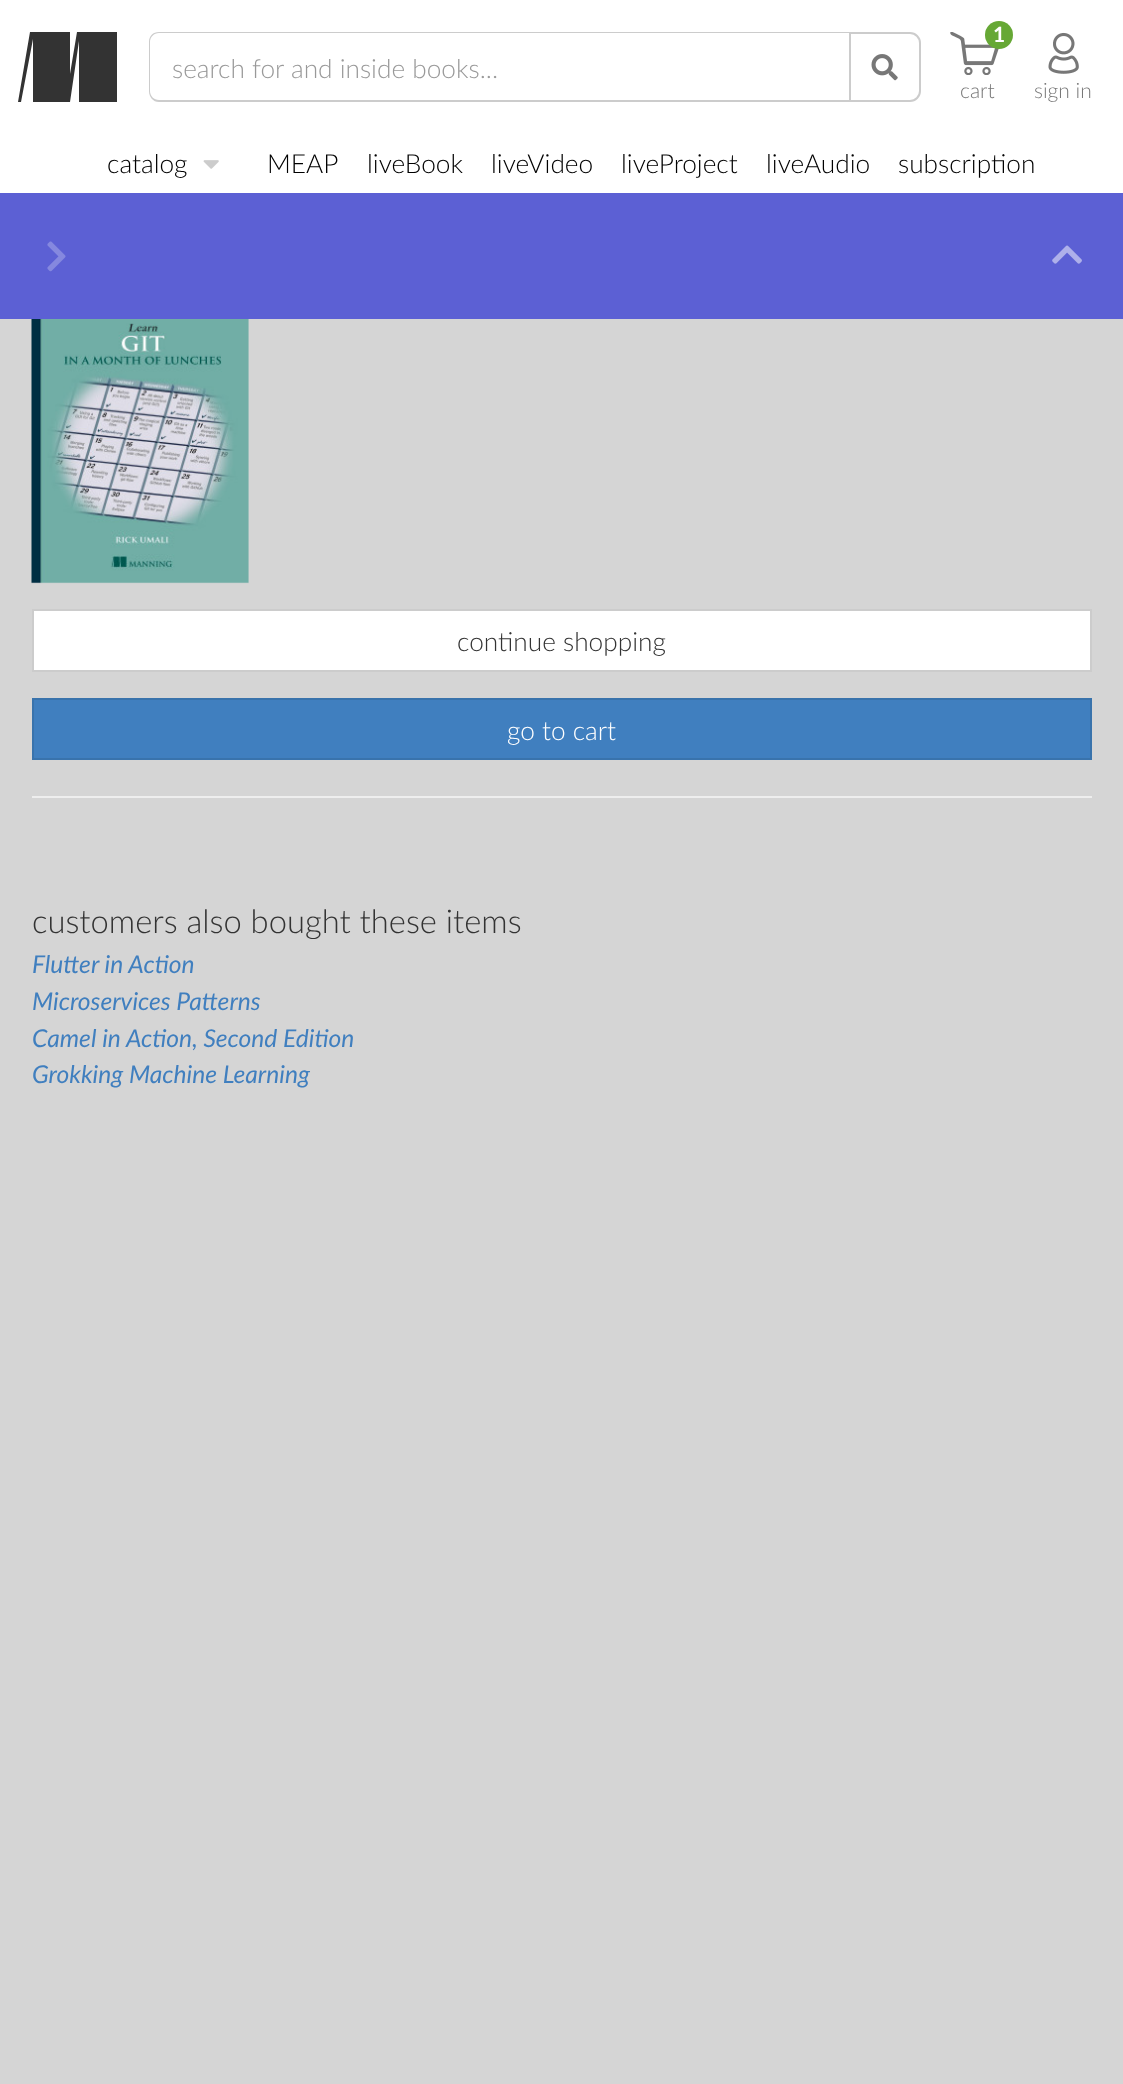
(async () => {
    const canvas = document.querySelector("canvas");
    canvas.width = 1123;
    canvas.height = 2084;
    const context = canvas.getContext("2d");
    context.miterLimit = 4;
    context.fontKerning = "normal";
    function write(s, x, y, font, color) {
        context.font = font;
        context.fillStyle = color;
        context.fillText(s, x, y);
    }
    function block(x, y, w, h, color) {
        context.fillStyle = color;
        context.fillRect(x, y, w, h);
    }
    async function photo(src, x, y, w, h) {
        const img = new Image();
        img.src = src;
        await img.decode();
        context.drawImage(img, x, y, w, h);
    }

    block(0, 0, 1123, 2084, "rgb(213, 213, 213)");
    block(0, 0, 1123, 193, "rgb(255, 255, 255)");
    context.fillStyle = "rgb(51, 51, 51)";
    context.beginPath();
    context.moveTo(30, 32);
    context.lineTo(70, 32);
    context.lineTo(70, 74);
    context.lineTo(77, 32);
    context.lineTo(117, 32);
    context.lineTo(117, 102);
    context.lineTo(79, 102);
    context.lineTo(79, 41);
    context.lineTo(70, 102);
    context.lineTo(33, 102);
    context.lineTo(33, 39);
    context.lineTo(21, 102);
    context.lineTo(18, 102);
    context.lineTo(30, 32);
    context.fill("evenodd");
    context.fillStyle = "rgb(204, 204, 204)";
    context.beginPath();
    context.moveTo(159, 32);
    context.lineTo(849, 32);
    context.lineTo(849, 102);
    context.lineTo(159, 102);
    context.bezierCurveTo(153, 102, 149, 97, 149, 91);
    context.lineTo(149, 42);
    context.bezierCurveTo(149, 36, 153, 32, 159, 32);
    context.closePath();
    context.moveTo(159, 33);
    context.lineTo(849, 33);
    context.lineTo(849, 100);
    context.lineTo(159, 100);
    context.bezierCurveTo(154, 100, 150, 96, 150, 91);
    context.lineTo(150, 42);
    context.bezierCurveTo(150, 37, 154, 33, 159, 33);
    context.closePath();
    context.fill("evenodd");
    write("search for and inside books...", 172, 78, "300 26.25px Lato", "rgb(153, 153, 153)");
    context.beginPath();
    context.roundRect(850, 33, 70, 68, [0, 10, 10, 0]);
    context.strokeStyle = "rgb(204, 204, 204)";
    context.lineWidth = 2;
    context.stroke();
    await photo("media/1.png", 871, 54, 27, 27);
    await photo("media/2.png", 950, 32, 49, 43);
    context.fillStyle = "rgb(102, 168, 53)";
    context.beginPath();
    context.arc(999, 35, 14, 0, Math.PI * 2);
    context.fill();
    write("1", 993, 42, "bold 21px Lato", "rgb(255, 255, 255)");
    write("cart", 960, 98, "300 21px Lato", "rgb(119, 119, 119)");
    await photo("media/3.png", 1048, 32, 31, 42);
    write("sign in", 1034, 98, "300 21px Lato", "rgb(119, 119, 119)");
    write("catalog", 107, 173, "300 26.25px Lato", "rgb(0, 0, 0)");
    await photo("media/4.png", 203, 160, 16, 9);
    write("MEAP", 267, 173, "300 26.25px Lato", "rgb(0, 0, 0)");
    write("liveBook", 367, 173, "300 26.25px Lato", "rgb(0, 0, 0)");
    write("liveVideo", 491, 173, "300 26.25px Lato", "rgb(0, 0, 0)");
    write("liveProject", 621, 173, "300 26.25px Lato", "rgb(0, 0, 0)");
    write("liveAudio", 766, 173, "300 26.25px Lato", "rgb(0, 0, 0)");
    write("subscription", 898, 173, "300 26.25px Lato", "rgb(0, 0, 0)");
    block(0, 193, 1123, 126, "rgb(92, 96, 212)");
    await photo("media/5.png", 47, 241, 19, 31);
    await photo("media/6.png", 1052, 245, 30, 19);
    await photo("media/7.png", 31, 319, 218, 265);
    context.fillStyle = "rgb(255, 255, 255)";
    context.beginPath();
    context.rect(33, 610, 1058, 61);
    context.fill();
    context.stroke();
    write("continue shopping", 457, 651, "300 26.25px Lato", "rgb(51, 51, 51)");
    context.fillStyle = "rgb(64, 127, 191)";
    context.beginPath();
    context.rect(33, 699, 1058, 60);
    context.fill();
    context.strokeStyle = "rgb(57, 115, 172)";
    context.stroke();
    write("go to cart", 507, 740, "300 26.25px Lato", "rgb(255, 255, 255)");
    block(32, 796, 1060, 2, "rgb(238, 238, 238)");
    write("customers also bought these items", 32, 933, "300 32.75px Lato", "rgb(51, 51, 51)");
    write("Flutter in Action", 32, 973, "italic 24.6px Lato", "rgb(64, 127, 191)");
    write("Microservices Patterns", 32, 1010, "italic 24.6px Lato", "rgb(64, 127, 191)");
    write("Camel in Action, Second Edition", 32, 1047, "italic 24.6px Lato", "rgb(64, 127, 191)");
    write("Grokking Machine Learning", 32, 1083, "italic 24.6px Lato", "rgb(64, 127, 191)");
})();
